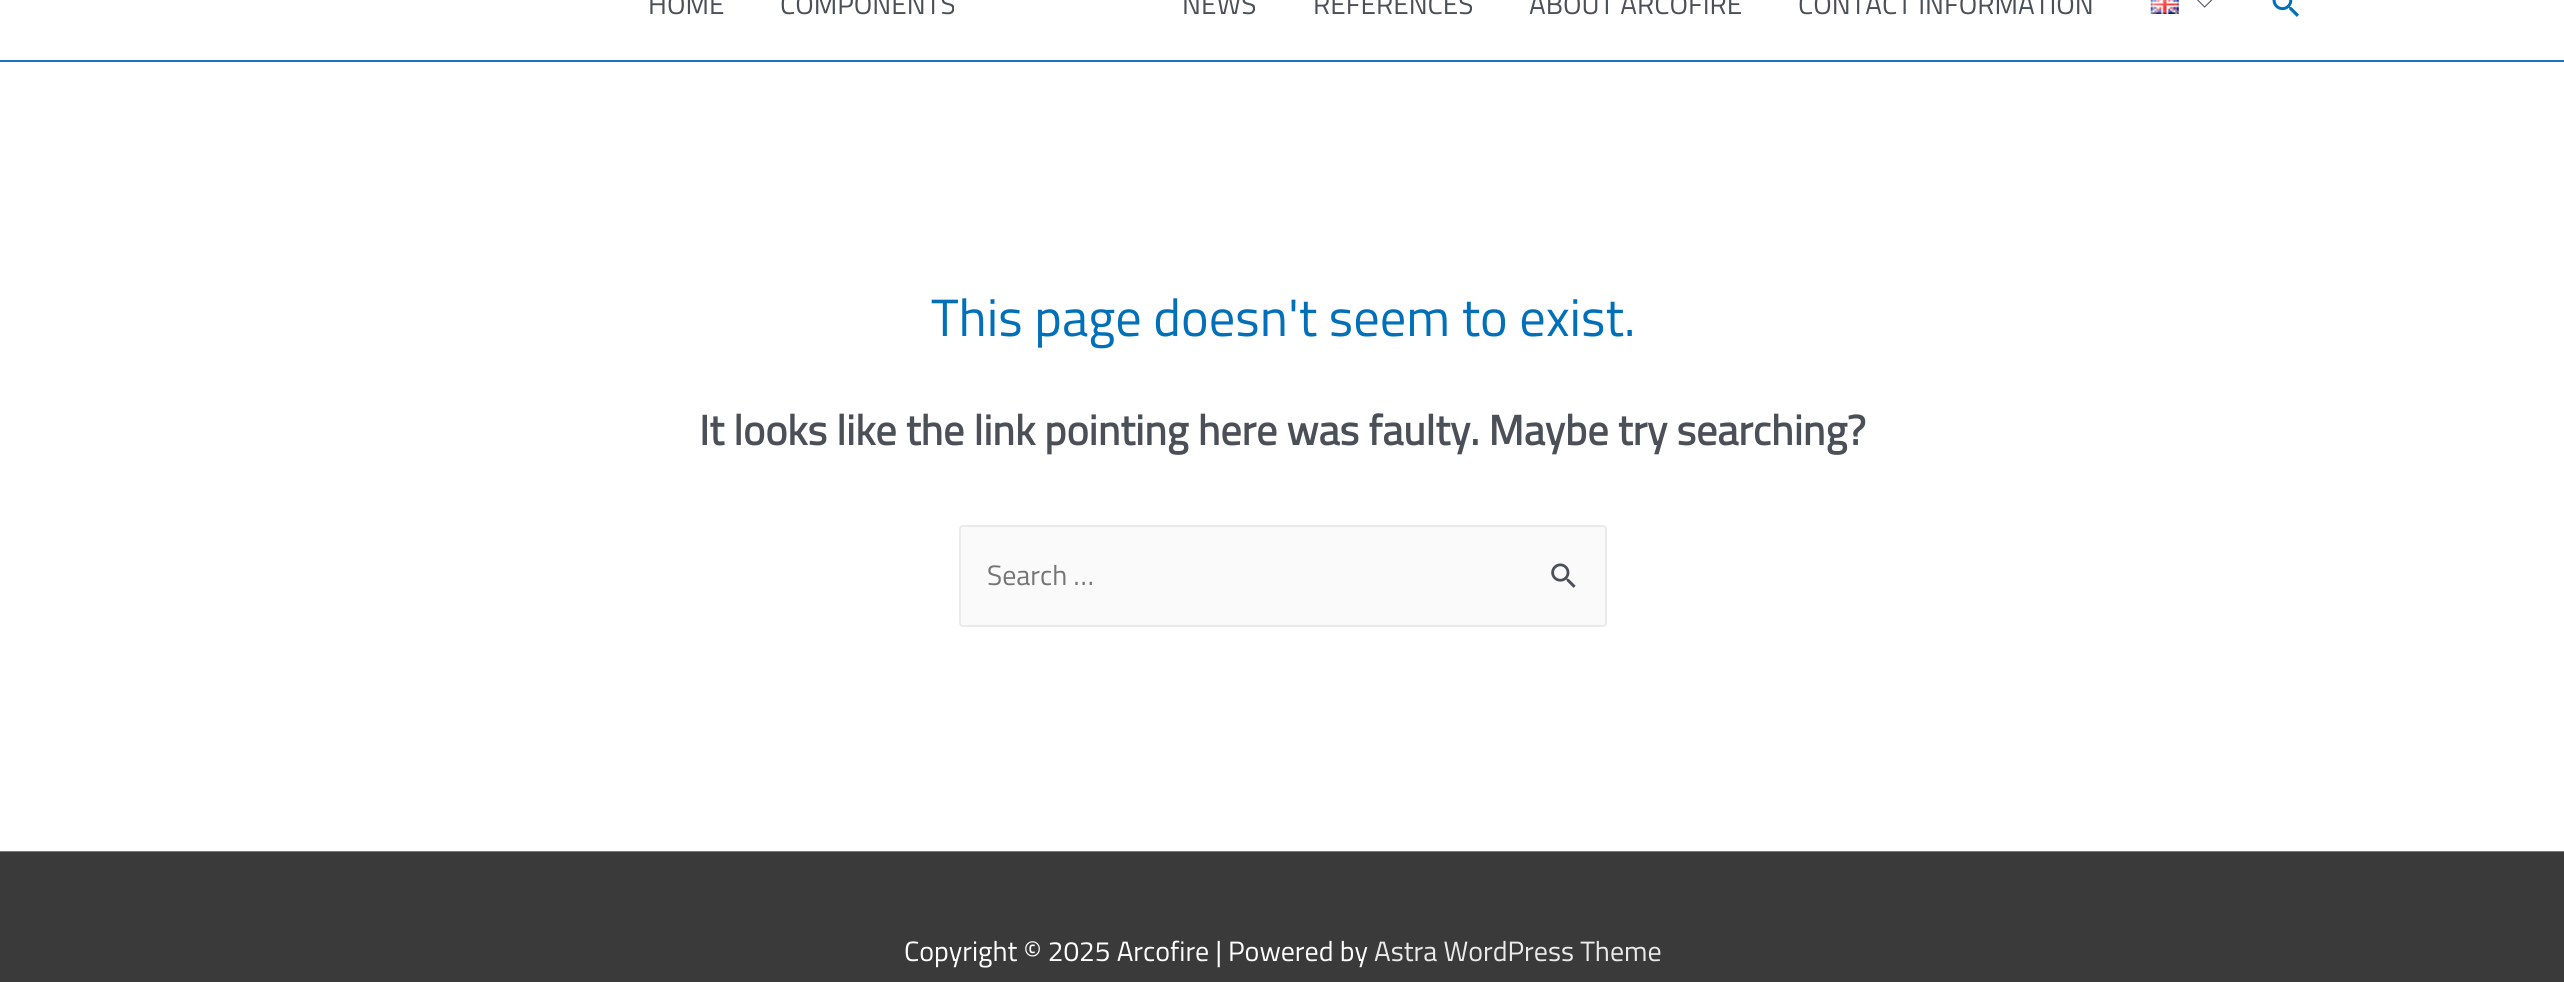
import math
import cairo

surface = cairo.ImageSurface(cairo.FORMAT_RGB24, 2564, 982)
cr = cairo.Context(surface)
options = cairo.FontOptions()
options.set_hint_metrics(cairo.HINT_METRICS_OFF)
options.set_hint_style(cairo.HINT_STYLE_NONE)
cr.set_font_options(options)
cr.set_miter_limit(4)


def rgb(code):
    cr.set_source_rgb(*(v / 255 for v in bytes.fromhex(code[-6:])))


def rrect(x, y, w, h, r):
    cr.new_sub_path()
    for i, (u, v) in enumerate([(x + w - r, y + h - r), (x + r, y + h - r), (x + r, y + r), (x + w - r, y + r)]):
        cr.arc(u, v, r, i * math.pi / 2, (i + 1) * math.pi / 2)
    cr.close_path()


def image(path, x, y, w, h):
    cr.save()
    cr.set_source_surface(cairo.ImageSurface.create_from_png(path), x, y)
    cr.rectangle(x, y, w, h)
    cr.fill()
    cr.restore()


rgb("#ffffff")
cr.paint()
rgb("#1e73be")
cr.rectangle(0, 60, 2564, 2)
cr.fill()
image("img/1.png", 2150, 0, 29, 14)
image("img/2.png", 2197, 0, 16, 8)
image("img/3.png", 2272, 0, 27, 17)
rgb("#fafafa")
rrect(960, 526, 646, 100, 3)
cr.fill_preserve()
rgb("#eaeaea")
cr.stroke()
image("img/4.png", 1551, 563, 25, 25)
rgb("#7a7a7a")
cr.rectangle(0, 851, 2564, 1)
cr.fill()
rgb("#3a3a3a")
cr.rectangle(0, 852, 2564, 130)
cr.fill()
cr.select_font_face("Titillium Web")
cr.set_font_size(28)
rgb("#4b4f58")
for x, y, s in [
    (648, 14, "HOME"),
    (780, 14, "COMPONENTS"),
    (1182, 14, "NEWS"),
    (1313, 14, "REFERENCES"),
    (1529, 14, "ABOUT ARCOFIRE"),
    (1798, 14, "CONTACT INFORMATION"),
]:
    cr.move_to(x, y)
    cr.show_text(s)
cr.set_font_size(52.5)
rgb("#0170b9")
cr.move_to(931, 336)
cr.show_text("This page doesn't seem to exist.")
cr.select_font_face("Titillium Web", cairo.FONT_SLANT_NORMAL, cairo.FONT_WEIGHT_BOLD)
cr.set_font_size(42)
rgb("#4b4f58")
cr.move_to(699, 445)
cr.show_text("It looks like the link pointing here was faulty. Maybe try searching?")
cr.select_font_face("Titillium Web")
cr.set_font_size(28)
rgb("#757575")
cr.move_to(987, 585)
cr.show_text("Search …")
rgb("#ffffff")
cr.move_to(904, 961)
cr.show_text("Copyright © 2025 Arcofire | Powered by")
rgb("#eaeaea")
cr.move_to(1374, 961)
cr.show_text("Astra WordPress Theme")
surface.write_to_png("page.png")
